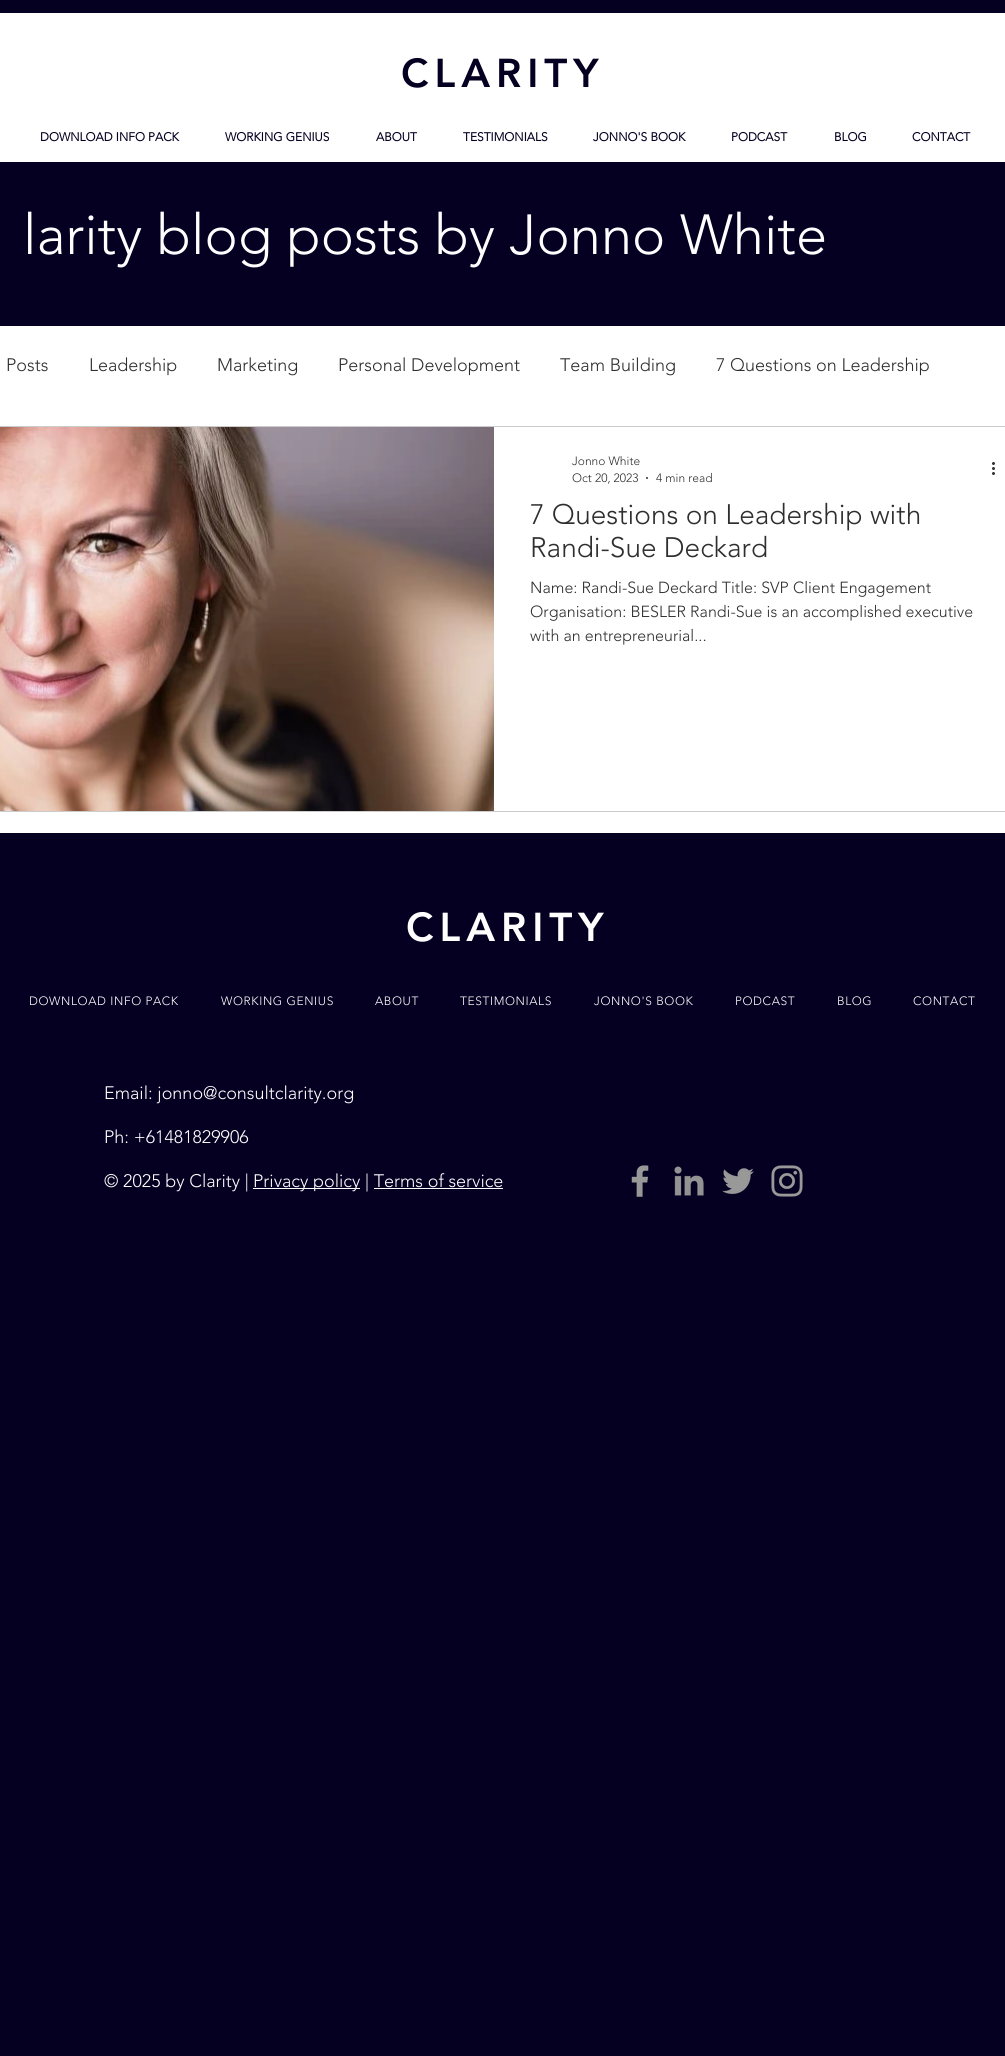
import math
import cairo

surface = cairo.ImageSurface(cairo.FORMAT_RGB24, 1005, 2056)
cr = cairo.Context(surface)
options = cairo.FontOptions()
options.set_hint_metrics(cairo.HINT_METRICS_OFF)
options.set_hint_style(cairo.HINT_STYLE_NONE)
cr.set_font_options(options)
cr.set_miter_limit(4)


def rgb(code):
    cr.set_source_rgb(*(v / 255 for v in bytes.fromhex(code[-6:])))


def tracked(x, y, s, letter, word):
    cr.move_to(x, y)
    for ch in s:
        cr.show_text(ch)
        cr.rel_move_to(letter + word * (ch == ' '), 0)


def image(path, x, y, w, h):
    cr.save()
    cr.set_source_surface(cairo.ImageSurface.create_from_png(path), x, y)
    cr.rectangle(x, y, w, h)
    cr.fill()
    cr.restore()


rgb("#050021")
cr.paint()
rgb("#ffffff")
cr.rectangle(0, 13, 1005, 149)
cr.fill()
cr.rectangle(0, 326, 1005, 507)
cr.fill()
cr.rectangle(-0.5, 426.5, 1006, 385)
rgb("#cccccc")
cr.set_line_width(1)
cr.stroke()
image("img/1.png", 0, 427, 494, 384)
rgb("#2f2e2e")
cr.arc(647, 478, 1, 0, 2 * math.pi)
cr.fill()
image("img/2.png", 992, 462, 3, 13)
rgb("#ffffff")
cr.rectangle(253, 1188, 107, 1)
cr.fill()
cr.rectangle(374, 1188, 129, 1)
cr.fill()
image("img/3.png", 631, 1165, 18, 32)
image("img/4.png", 674, 1166, 30, 30)
image("img/5.png", 722, 1168, 32, 27)
image("img/6.png", 771, 1165, 32, 32)
cr.select_font_face("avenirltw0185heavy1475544 Black")
cr.set_font_size(40)
rgb("#050021")
tracked(401, 87, "CLARITY", 6, 0)
cr.select_font_face("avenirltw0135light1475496", cairo.FONT_SLANT_NORMAL, cairo.FONT_WEIGHT_BOLD)
cr.set_font_size(12)
for x, y, s in [
    (40, 141, "DOWNLOAD INFO PACK"),
    (225, 141, "WORKING GENIUS"),
    (376, 141, "ABOUT"),
    (463, 141, "TESTIMONIALS"),
    (593, 141, "JONNO'S BOOK"),
    (731, 141, "PODCAST"),
    (834, 141, "BLOG"),
    (912, 141, "CONTACT"),
]:
    cr.move_to(x, y)
    cr.show_text(s)
cr.select_font_face("avenirltw0135light1475496 Light")
cr.set_font_size(56)
rgb("#ffffff")
cr.move_to(23, 254)
cr.show_text("larity blog posts by Jonno White")
cr.set_font_size(18)
rgb("#2f2e2e")
for x, y, s in [
    (6, 371, "Posts"),
    (89, 371, "Leadership"),
    (217, 371, "Marketing"),
    (338, 371, "Personal Development"),
    (560, 371, "Team Building"),
    (716, 371, "7 Questions on Leadership"),
]:
    cr.move_to(x, y)
    cr.show_text(s)
cr.set_font_size(12)
for x, y, s in [
    (572, 465, "Jonno White"),
    (572, 482, "Oct 20, 2023"),
    (656, 482, "4 min read"),
]:
    cr.move_to(x, y)
    cr.show_text(s)
cr.set_font_size(28)
cr.move_to(530, 524)
cr.show_text("7 Questions on Leadership with")
cr.move_to(530, 557)
cr.show_text("Randi-Sue Deckard")
cr.set_font_size(16)
for x, y, s in [
    (530, 593, "Name: Randi-Sue Deckard Title: SVP Client Engagement"),
    (530, 617, "Organisation: BESLER Randi-Sue is an accomplished executive"),
    (530, 641, "with an entrepreneurial..."),
]:
    cr.move_to(x, y)
    cr.show_text(s)
cr.select_font_face("avenirltw0185heavy1475544 Black")
cr.set_font_size(40)
rgb("#ffffff")
tracked(406, 941, "CLARITY", 6, 0)
cr.select_font_face("avenirltw0135light1475496 Light")
cr.set_font_size(12)
for x, y, s in [
    (29, 1005, "DOWNLOAD INFO PACK"),
    (221, 1005, "WORKING GENIUS"),
    (375, 1005, "ABOUT"),
    (460, 1005, "TESTIMONIALS"),
    (594, 1005, "JONNO'S BOOK"),
    (735, 1005, "PODCAST"),
    (837, 1005, "BLOG"),
    (913, 1005, "CONTACT"),
]:
    tracked(x, y, s, 0.6, 0)
cr.set_font_size(18)
for x, y, s in [
    (104, 1099, "Email: jonno@consultclarity.org"),
    (104, 1143, "Ph: +61481829906"),
    (104, 1187, "© 2025 by Clarity |"),
    (253, 1187, "Privacy policy | Terms of service"),
]:
    cr.move_to(x, y)
    cr.show_text(s)
surface.write_to_png("page.png")
